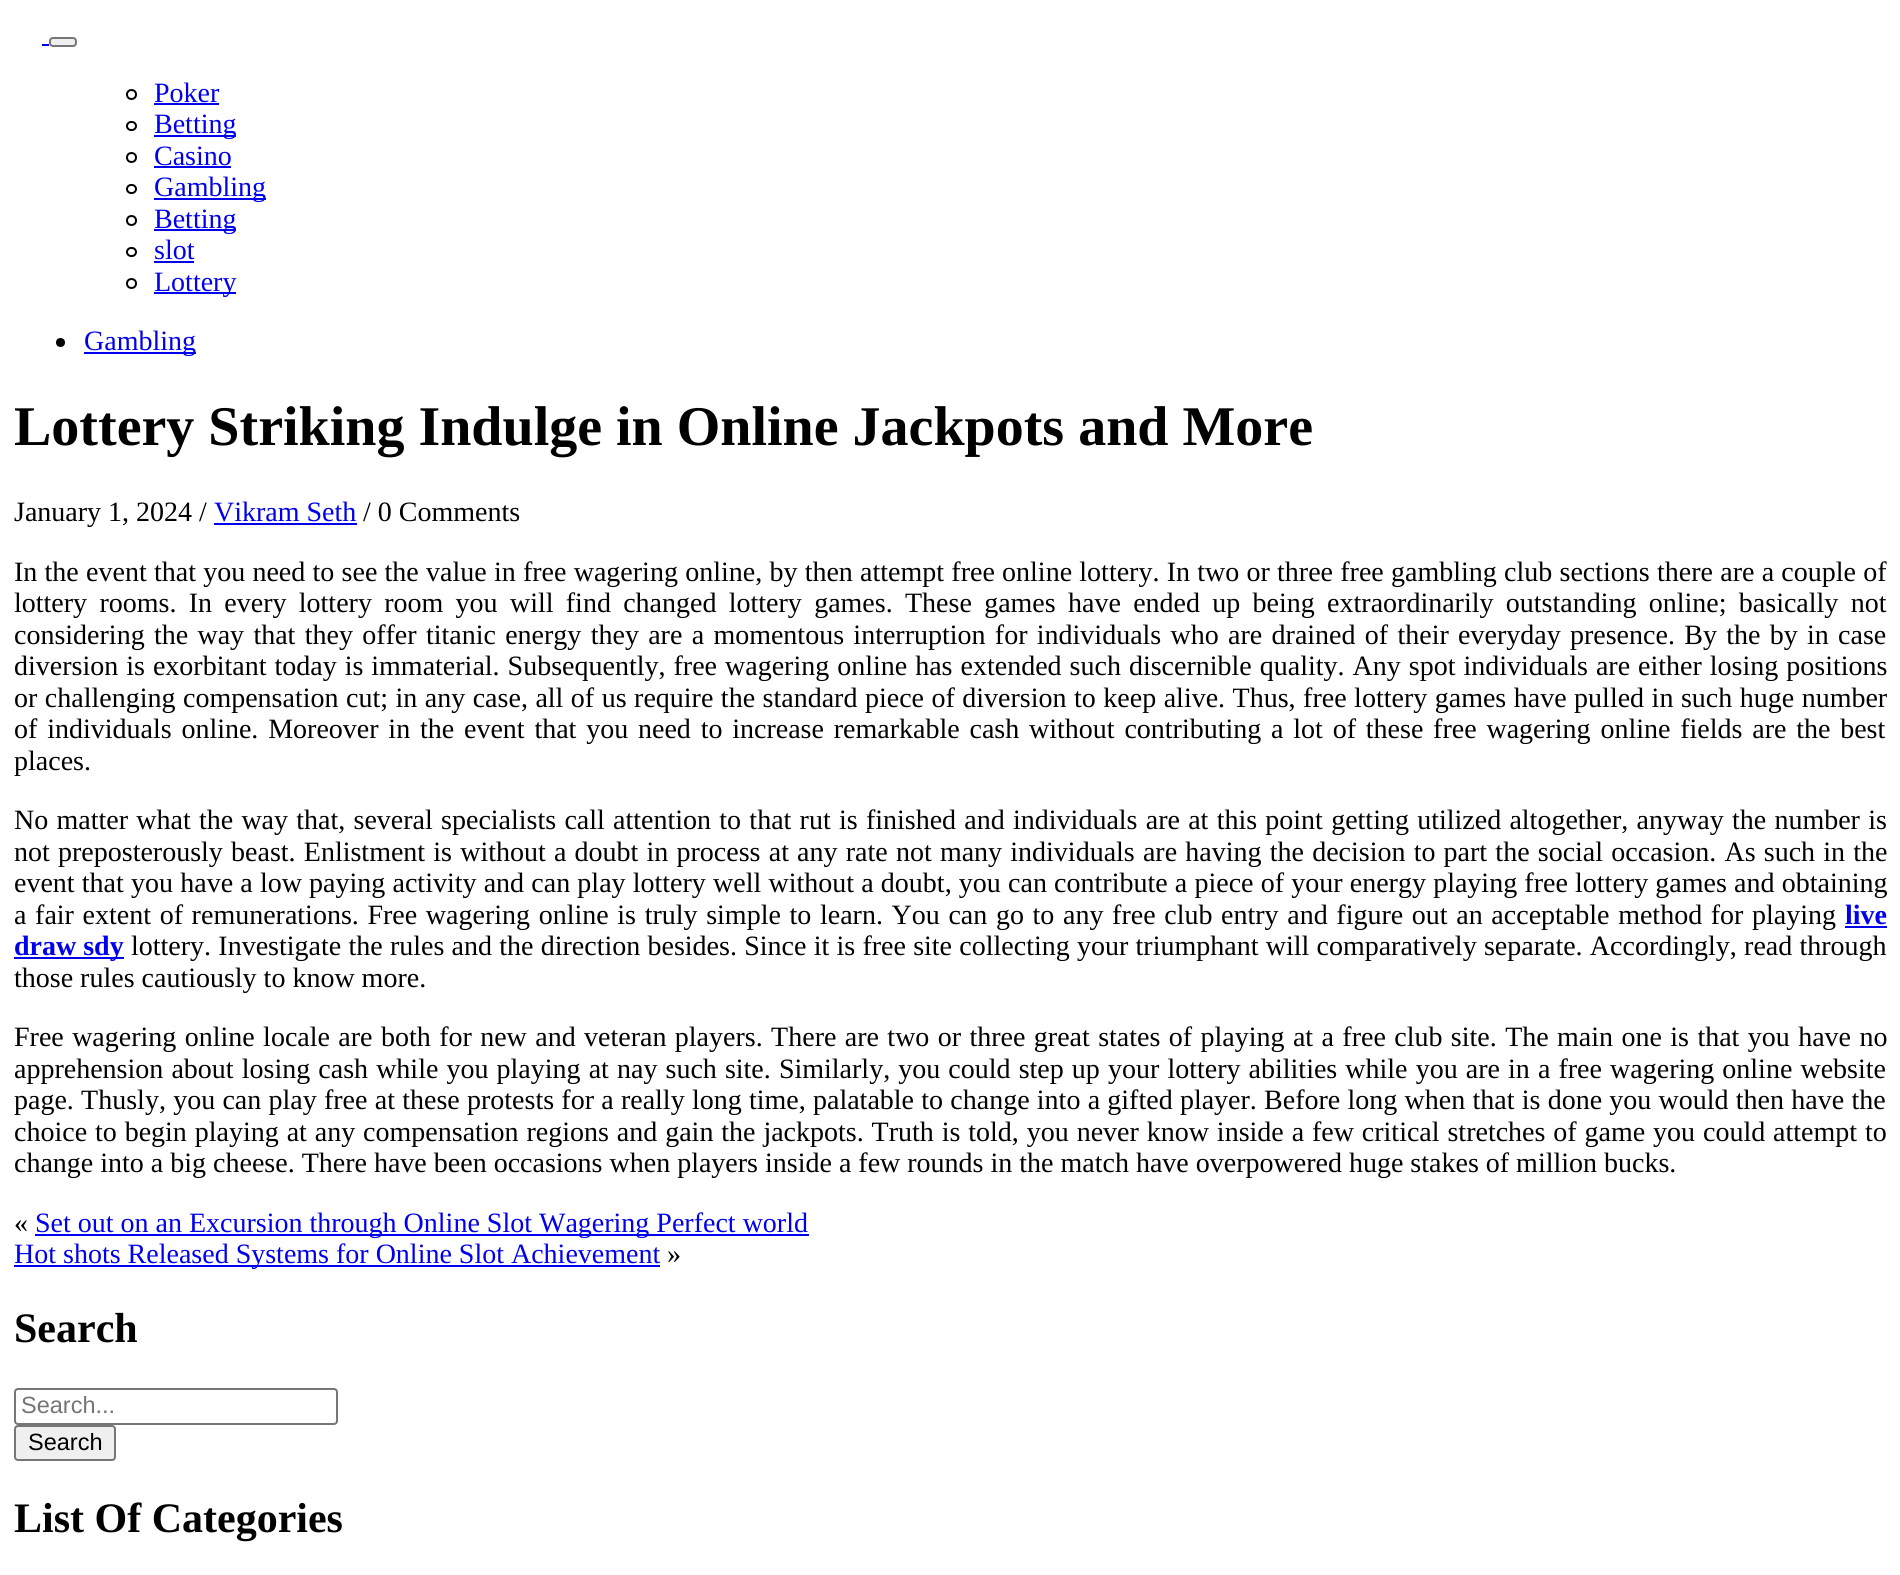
import math
import cairo

surface = cairo.ImageSurface(cairo.FORMAT_RGB24, 1900, 1575)
cr = cairo.Context(surface)
options = cairo.FontOptions()
options.set_hint_metrics(cairo.HINT_METRICS_OFF)
options.set_hint_style(cairo.HINT_STYLE_NONE)
cr.set_font_options(options)
cr.set_miter_limit(4)


def rgb(code):
    cr.set_source_rgb(*(v / 255 for v in bytes.fromhex(code[-6:])))


def tracked(x, y, s, letter, word):
    cr.move_to(x, y)
    for ch in s:
        cr.show_text(ch)
        cr.rel_move_to(letter + word * (ch == ' '), 0)


def rrect(x, y, w, h, r):
    cr.new_sub_path()
    for i, (u, v) in enumerate([(x + w - r, y + h - r), (x + r, y + h - r), (x + r, y + r), (x + w - r, y + r)]):
        cr.arc(u, v, r, i * math.pi / 2, (i + 1) * math.pi / 2)
    cr.close_path()


rgb("#ffffff")
cr.paint()
rgb("#0000ee")
cr.rectangle(42, 44, 7, 2)
cr.fill()
rgb("#efefef")
rrect(50, 38, 26, 8, 3)
cr.fill_preserve()
rgb("#767676")
cr.stroke()
cr.arc(131.5, 94.5, 4.5, 0, 2 * math.pi)
rgb("#000000")
cr.stroke()
rgb("#0000ee")
cr.rectangle(154, 103, 65, 2)
cr.fill()
rrect(127, 122, 9, 8, 4)
rgb("#000000")
cr.stroke()
rgb("#0000ee")
cr.rectangle(154, 135, 82, 2)
cr.fill()
cr.arc(131.5, 157.5, 4.5, 0, 2 * math.pi)
rgb("#000000")
cr.stroke()
rgb("#0000ee")
cr.rectangle(154, 166, 77, 2)
cr.fill()
rrect(127, 185, 9, 8, 4)
rgb("#000000")
cr.stroke()
rgb("#0000ee")
cr.rectangle(154, 198, 112, 2)
cr.fill()
cr.arc(131.5, 220.5, 4.5, 0, 2 * math.pi)
rgb("#000000")
cr.stroke()
rgb("#0000ee")
cr.rectangle(154, 229, 82, 2)
cr.fill()
rrect(127, 248, 9, 8, 4)
rgb("#000000")
cr.stroke()
rgb("#0000ee")
cr.rectangle(154, 261, 40, 2)
cr.fill()
cr.arc(131.5, 283.5, 4.5, 0, 2 * math.pi)
rgb("#000000")
cr.stroke()
rgb("#0000ee")
cr.rectangle(154, 292, 82, 2)
cr.fill()
rgb("#000000")
cr.arc(60.5, 342.5, 4.5, 0, 2 * math.pi)
cr.fill()
for x, y, w, h, color in [
    (84, 352, 112, 2, "#0000ee"),
    (214, 523, 143, 2, "#0000ee"),
    (1845, 926, 42, 2, "#0000ee"),
    (14, 957, 110, 2, "#0000ee"),
    (35, 1234, 774, 2, "#0000ee"),
    (14, 1265, 646, 2, "#0000ee"),
]:
    rgb(color)
    cr.rectangle(x, y, w, h)
    cr.fill()
rrect(15, 1389, 322, 35, 3)
rgb("#767676")
cr.stroke()
rgb("#efefef")
rrect(15, 1426, 100, 34, 3)
cr.fill_preserve()
rgb("#767676")
cr.stroke()
cr.select_font_face("Liberation Serif")
cr.set_font_size(28)
rgb("#0000ee")
for x, y, s in [
    (154, 102, "Poker"),
    (154, 133, "Betting"),
    (154, 165, "Casino"),
    (154, 196, "Gambling"),
    (154, 228, "Betting"),
    (154, 259, "slot"),
    (154, 291, "Lottery"),
    (84, 350, "Gambling"),
]:
    cr.move_to(x, y)
    cr.show_text(s)
cr.select_font_face("Liberation Serif", cairo.FONT_SLANT_NORMAL, cairo.FONT_WEIGHT_BOLD)
cr.set_font_size(56)
rgb("#000000")
cr.move_to(14, 445)
cr.show_text("Lottery Striking Indulge in Online Jackpots and More")
cr.select_font_face("Liberation Serif")
cr.set_font_size(28)
cr.move_to(14, 521)
cr.show_text("January 1, 2024 /")
rgb("#0000ee")
cr.move_to(214, 521)
cr.show_text("Vikram Seth")
rgb("#000000")
cr.move_to(363, 521)
cr.show_text("/ 0 Comments")
tracked(14, 581, "In the event that you need to see the value in free wagering online, by then attempt free online lottery. In two or three free gambling club sections there are a couple of", 0, 0.25)
tracked(14, 612, "lottery rooms. In every lottery room you will find changed lottery games. These games have ended up being extraordinarily outstanding online; basically not", 0, 5.3)
tracked(14, 644, "considering the way that they offer titanic energy they are a momentous interruption for individuals who are drained of their everyday presence. By the by in case", 0, 2.3)
tracked(14, 675, "diversion is exorbitant today is immaterial. Subsequently, free wagering online has extended such discernible quality. Any spot individuals are either losing positions", 0, 1)
tracked(14, 707, "or challenging compensation cut; in any case, all of us require the standard piece of diversion to keep alive. Thus, free lottery games have pulled in such huge number", 0, 0.5)
tracked(14, 738, "of individuals online. Moreover in the event that you need to increase remarkable cash without contributing a lot of these free wagering online fields are the best", 0, 2.8)
cr.move_to(14, 770)
cr.show_text("places.")
tracked(14, 829, "No matter what the way that, several specialists call attention to that rut is finished and individuals are at this point getting utilized altogether, anyway the number is", 0, 1.25)
tracked(14, 861, "not preposterously beast. Enlistment is without a doubt in process at any rate not many individuals are having the decision to part the social occasion. As such in the", 0, 1.2)
tracked(14, 892, "event that you have a low paying activity and can play lottery well without a doubt, you can contribute a piece of your energy playing free lottery games and obtaining", 0, 0.2)
tracked(14, 924, "a fair extent of remunerations. Free wagering online is truly simple to learn. You can go to any free club entry and figure out an acceptable method for playing", 0, 1.65)
cr.select_font_face("Liberation Serif", cairo.FONT_SLANT_NORMAL, cairo.FONT_WEIGHT_BOLD)
rgb("#0000ee")
cr.move_to(1845, 924)
cr.show_text("live")
cr.move_to(14, 955)
cr.show_text("draw sdy")
cr.select_font_face("Liberation Serif")
rgb("#000000")
tracked(131, 955, "lottery. Investigate the rules and the direction besides. Since it is free site collecting your triumphant will comparatively separate. Accordingly, read through", 0, 0.25)
cr.move_to(14, 987)
cr.show_text("those rules cautiously to know more.")
tracked(14, 1046, "Free wagering online locale are both for new and veteran players. There are two or three great states of playing at a free club site. The main one is that you have no", 0, 1.4)
tracked(14, 1078, "apprehension about losing cash while you playing at nay such site. Similarly, you could step up your lottery abilities while you are in a free wagering online website", 0, 1.1)
tracked(14, 1109, "page. Thusly, you can play free at these protests for a really long time, palatable to change into a gifted player. Before long when that is done you would then have the", 0, 0.25)
tracked(14, 1141, "choice to begin playing at any compensation regions and gain the jackpots. Truth is told, you never know inside a few critical stretches of game you could attempt to", 0, 0.9)
cr.move_to(14, 1172)
cr.show_text("change into a big cheese. There have been occasions when players inside a few rounds in the match have overpowered huge stakes of million bucks.")
cr.move_to(14, 1232)
cr.show_text("«")
rgb("#0000ee")
cr.move_to(35, 1232)
cr.show_text("Set out on an Excursion through Online Slot Wagering Perfect world")
cr.move_to(14, 1263)
cr.show_text("Hot shots Released Systems for Online Slot Achievement")
rgb("#000000")
cr.move_to(667, 1263)
cr.show_text("»")
cr.select_font_face("Liberation Serif", cairo.FONT_SLANT_NORMAL, cairo.FONT_WEIGHT_BOLD)
cr.set_font_size(42)
cr.move_to(14, 1342)
cr.show_text("Search")
cr.select_font_face("Liberation Sans")
cr.set_font_size(23.5)
rgb("#757575")
cr.move_to(21, 1413)
cr.show_text("Search...")
rgb("#000000")
cr.move_to(28, 1450)
cr.show_text("Search")
cr.select_font_face("Liberation Serif", cairo.FONT_SLANT_NORMAL, cairo.FONT_WEIGHT_BOLD)
cr.set_font_size(42)
cr.move_to(14, 1532)
cr.show_text("List Of Categories")
surface.write_to_png("page.png")
